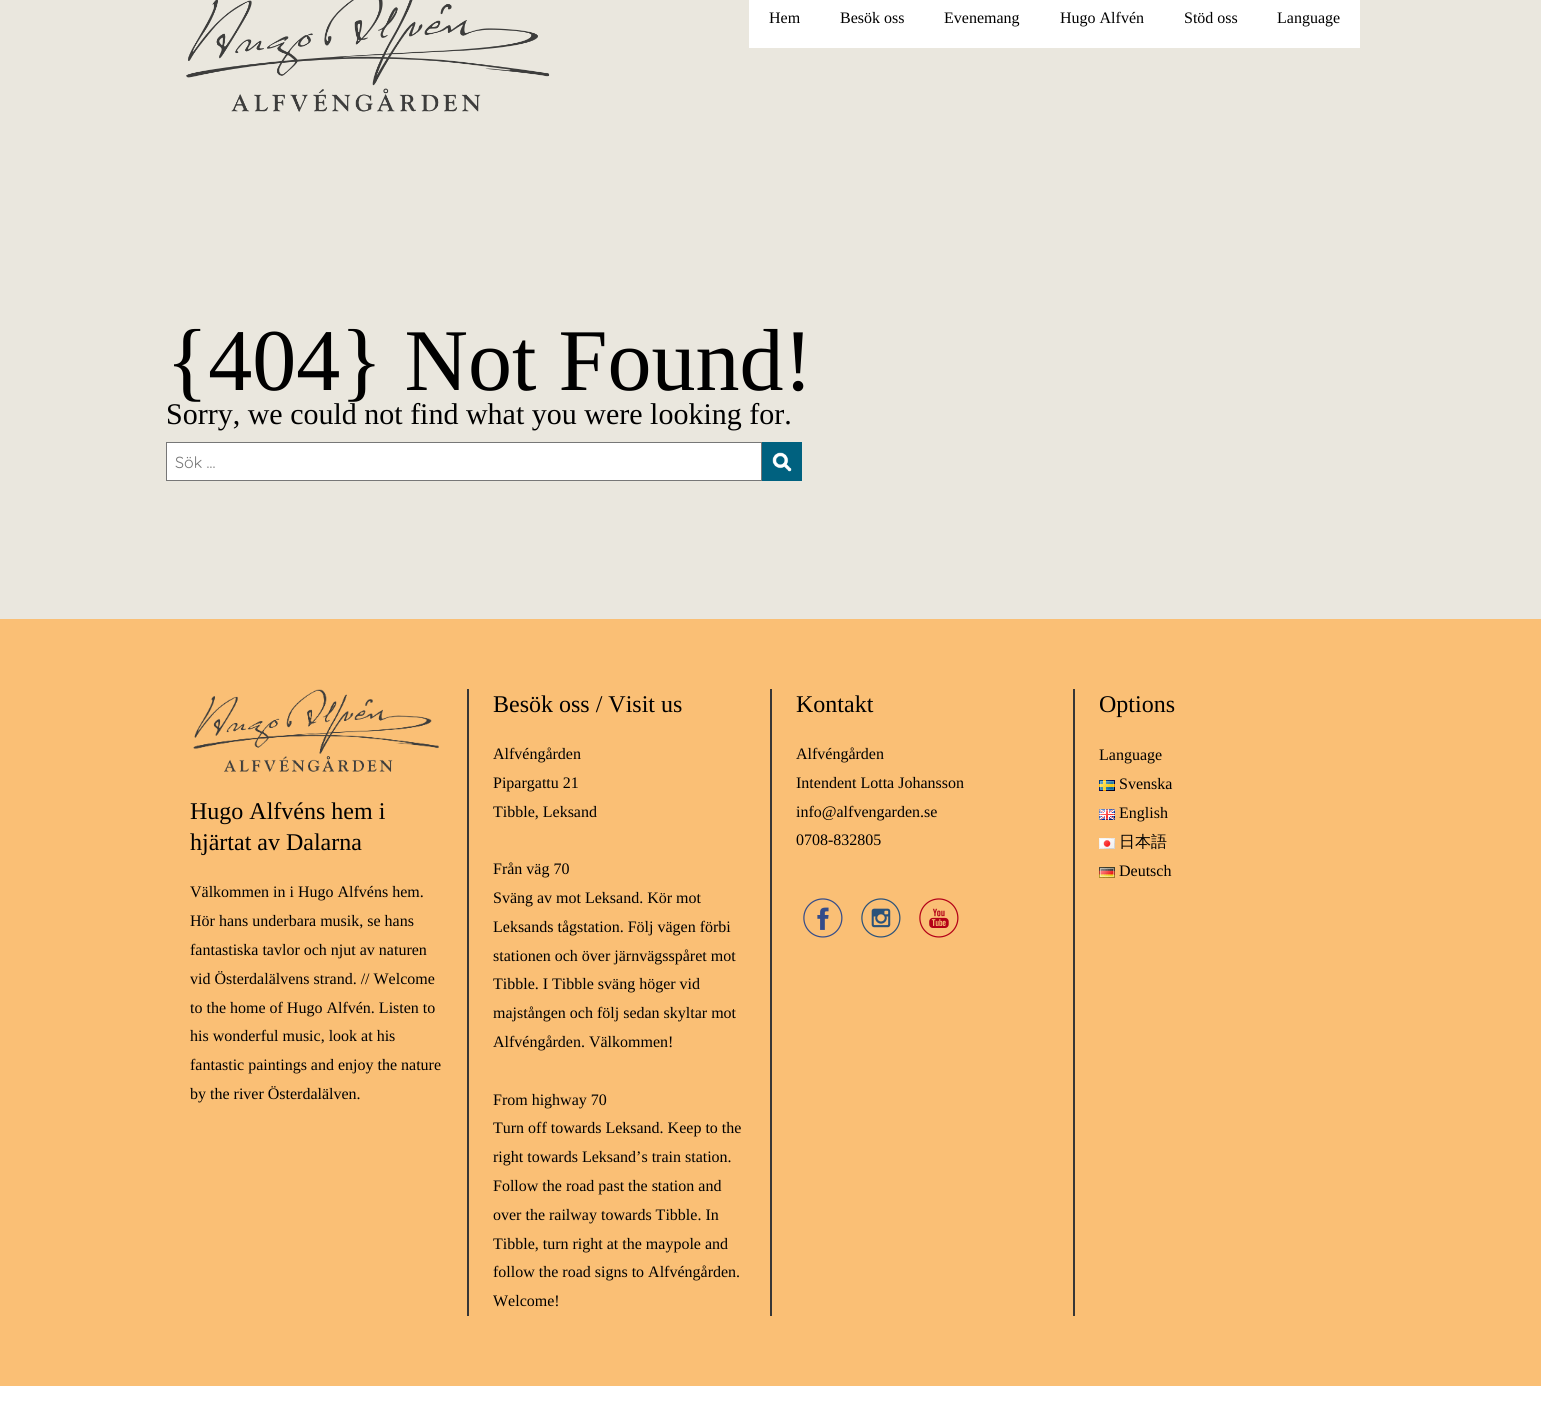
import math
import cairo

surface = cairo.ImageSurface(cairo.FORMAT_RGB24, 1541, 1428)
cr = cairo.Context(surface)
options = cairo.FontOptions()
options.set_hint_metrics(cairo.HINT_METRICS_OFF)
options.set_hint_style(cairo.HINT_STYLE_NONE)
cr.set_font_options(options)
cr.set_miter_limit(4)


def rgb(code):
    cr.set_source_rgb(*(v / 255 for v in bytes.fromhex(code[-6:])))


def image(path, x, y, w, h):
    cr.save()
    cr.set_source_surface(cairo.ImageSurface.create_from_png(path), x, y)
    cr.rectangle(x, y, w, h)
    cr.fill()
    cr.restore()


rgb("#eae7de")
cr.paint()
image("img/1.png", 186, 0, 364, 112)
rgb("#ffffff")
cr.rectangle(749, 0, 611, 48)
cr.fill()
cr.rectangle(166.5, 442.5, 595, 38)
cr.fill_preserve()
rgb("#777777")
cr.set_line_width(1)
cr.stroke()
rgb("#00617f")
cr.rectangle(762, 442, 40, 39)
cr.fill()
image("img/2.png", 772, 452, 20, 20)
rgb("#fabf75")
cr.rectangle(0, 619, 1541, 767)
cr.fill()
rgb("#363636")
cr.rectangle(467, 689, 2, 627)
cr.fill()
image("img/3.png", 193, 689, 246, 83)
cr.rectangle(770, 689, 2, 627)
cr.fill()
cr.rectangle(1073, 689, 2, 627)
cr.fill()
image("img/4.png", 803, 898, 40, 40)
image("img/5.png", 861, 898, 40, 40)
image("img/6.png", 919, 898, 40, 40)
image("img/7.png", 1099, 780, 16, 11)
image("img/8.png", 1099, 809, 16, 11)
image("img/9.png", 1099, 838, 16, 11)
image("img/10.png", 1099, 867, 16, 11)
rgb("#ffffff")
cr.rectangle(0, 1386, 1541, 42)
cr.fill()
cr.select_font_face("Tinos")
cr.set_font_size(16)
rgb("#000000")
for x, y, s in [
    (769, 23, "Hem"),
    (840, 23, "Besök oss"),
    (944, 23, "Evenemang"),
    (1060, 23, "Hugo Alfvén"),
    (1184, 23, "Stöd oss"),
    (1277, 23, "Language"),
]:
    cr.move_to(x, y)
    cr.show_text(s)
cr.set_font_size(88)
cr.move_to(166, 390)
cr.show_text("{404} Not Found!")
cr.set_font_size(30)
cr.move_to(166, 424)
cr.show_text("Sorry, we could not find what you were looking for.")
cr.select_font_face("Quicksand")
cr.set_font_size(16)
rgb("#757575")
cr.move_to(175, 468)
cr.show_text("Sök …")
cr.select_font_face("Tinos")
cr.set_font_size(24)
rgb("#000000")
cr.move_to(190, 819)
cr.show_text("Hugo Alfvéns hem i")
cr.move_to(190, 850)
cr.show_text("hjärtat av Dalarna")
cr.set_font_size(16)
for x, y, s in [
    (190, 897, "Välkommen in i Hugo Alfvéns hem."),
    (190, 926, "Hör hans underbara musik, se hans"),
    (190, 955, "fantastiska tavlor och njut av naturen"),
    (190, 984, "vid Österdalälvens strand. // Welcome"),
    (190, 1013, "to the home of Hugo Alfvén. Listen to"),
    (190, 1041, "his wonderful music, look at his"),
    (190, 1070, "fantastic paintings and enjoy the nature"),
    (190, 1099, "by the river Österdalälven."),
]:
    cr.move_to(x, y)
    cr.show_text(s)
cr.set_font_size(24)
cr.move_to(493, 712)
cr.show_text("Besök oss / Visit us")
cr.set_font_size(16)
for x, y, s in [
    (493, 759, "Alfvéngården"),
    (493, 788, "Pipargattu 21"),
    (493, 817, "Tibble, Leksand"),
    (493, 874, "Från väg 70"),
    (493, 903, "Sväng av mot Leksand. Kör mot"),
    (493, 932, "Leksands tågstation. Följ vägen förbi"),
    (493, 961, "stationen och över järnvägsspåret mot"),
    (493, 989, "Tibble. I Tibble sväng höger vid"),
    (493, 1018, "majstången och följ sedan skyltar mot"),
    (493, 1047, "Alfvéngården. Välkommen!"),
    (493, 1105, "From highway 70"),
    (493, 1133, "Turn off towards Leksand. Keep to the"),
    (493, 1162, "right towards Leksand’s train station."),
    (493, 1191, "Follow the road past the station and"),
    (493, 1220, "over the railway towards Tibble. In"),
    (493, 1249, "Tibble, turn right at the maypole and"),
    (493, 1277, "follow the road signs to Alfvéngården."),
    (493, 1306, "Welcome!"),
]:
    cr.move_to(x, y)
    cr.show_text(s)
cr.set_font_size(24)
cr.move_to(796, 712)
cr.show_text("Kontakt")
cr.set_font_size(16)
for x, y, s in [
    (796, 759, "Alfvéngården"),
    (796, 788, "Intendent Lotta Johansson"),
    (796, 817, "info@alfvengarden.se"),
    (796, 845, "0708-832805"),
]:
    cr.move_to(x, y)
    cr.show_text(s)
cr.set_font_size(24)
cr.move_to(1099, 712)
cr.show_text("Options")
cr.set_font_size(16)
for x, y, s in [
    (1099, 760, "Language"),
    (1119, 789, "Svenska"),
    (1119, 818, "English"),
]:
    cr.move_to(x, y)
    cr.show_text(s)
cr.select_font_face("WenQuanYi Zen Hei Medium")
cr.move_to(1119, 847)
cr.show_text("日本語")
cr.select_font_face("Tinos")
cr.move_to(1119, 876)
cr.show_text("Deutsch")
surface.write_to_png("page.png")
